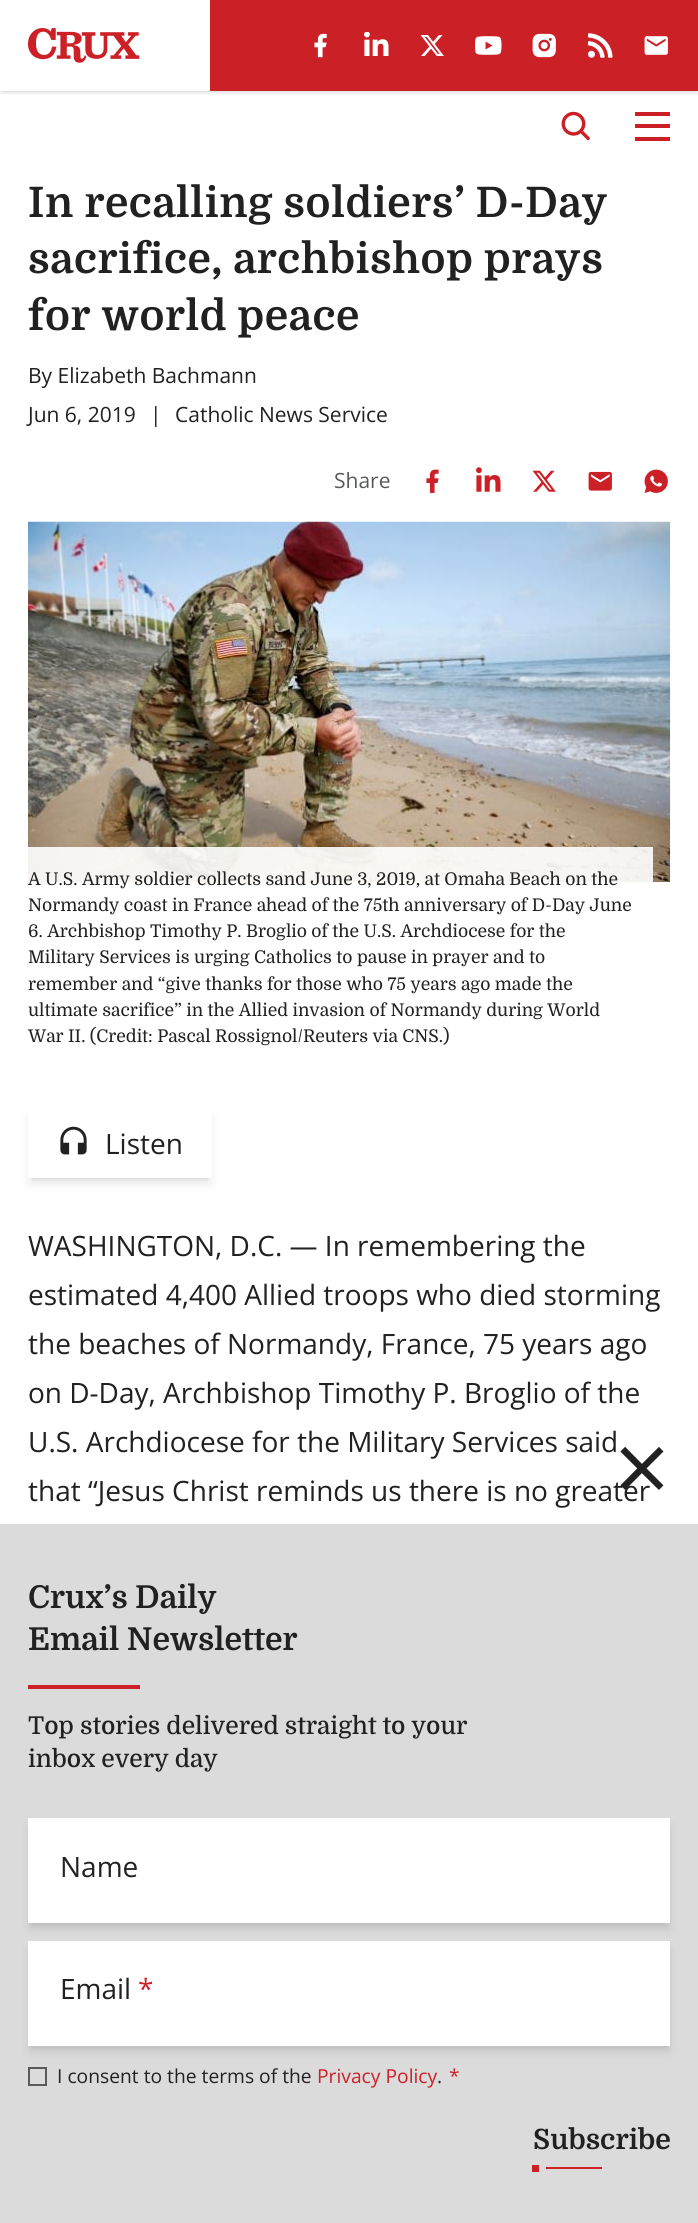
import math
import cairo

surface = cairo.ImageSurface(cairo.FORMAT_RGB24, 698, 2223)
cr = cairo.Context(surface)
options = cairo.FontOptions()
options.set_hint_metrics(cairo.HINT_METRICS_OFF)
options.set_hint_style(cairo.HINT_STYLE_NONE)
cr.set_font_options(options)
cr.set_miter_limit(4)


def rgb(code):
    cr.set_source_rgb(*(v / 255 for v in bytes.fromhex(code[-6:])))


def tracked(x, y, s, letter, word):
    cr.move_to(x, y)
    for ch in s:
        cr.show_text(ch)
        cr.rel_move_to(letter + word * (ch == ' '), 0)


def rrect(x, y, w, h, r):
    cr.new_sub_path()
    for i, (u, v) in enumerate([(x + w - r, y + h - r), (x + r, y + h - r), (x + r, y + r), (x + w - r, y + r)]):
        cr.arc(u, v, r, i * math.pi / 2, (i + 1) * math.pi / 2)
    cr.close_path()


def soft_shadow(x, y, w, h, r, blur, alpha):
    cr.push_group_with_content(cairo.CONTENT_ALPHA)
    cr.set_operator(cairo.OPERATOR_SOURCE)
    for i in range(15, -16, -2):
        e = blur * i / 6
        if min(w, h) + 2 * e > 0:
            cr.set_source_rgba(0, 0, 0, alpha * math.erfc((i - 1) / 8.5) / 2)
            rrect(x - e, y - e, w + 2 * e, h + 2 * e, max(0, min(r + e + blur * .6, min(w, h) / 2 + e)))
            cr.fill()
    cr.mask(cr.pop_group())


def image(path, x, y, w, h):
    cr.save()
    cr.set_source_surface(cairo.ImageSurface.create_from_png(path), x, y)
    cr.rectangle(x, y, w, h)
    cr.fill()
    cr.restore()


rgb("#ffffff")
cr.paint()
rgb("#dbdbdb")
cr.rectangle(0, 1524, 698, 699)
cr.fill()
cr.save()
cr.rectangle(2, 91, 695, 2)
cr.clip()
rgb("#000000")
soft_shadow(2, 4, 695, 87, 0, 2, 0.1)
cr.restore()
cr.save()
cr.rectangle(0, 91, 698, 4)
cr.clip()
rgb("#000000")
soft_shadow(0, 2, 698, 91, 0, 2.5, 0.1)
cr.restore()
image("img/1.png", 28, 28, 112, 35)
rgb("#cc2027")
cr.rectangle(210, 0, 488, 91)
cr.fill()
image("img/2.png", 314, 33, 13, 25)
image("img/3.png", 364, 32, 25, 24)
image("img/4.png", 420, 35, 24, 21)
image("img/5.png", 475, 36, 27, 19)
image("img/6.png", 532, 33, 24, 25)
image("img/7.png", 588, 33, 25, 25)
image("img/8.png", 644, 36, 24, 19)
image("img/9.png", 561, 111, 29, 30)
for x, y, w, h, color in [
    (635, 112, 35, 4, "#cc2027"),
    (635, 124, 35, 4, "#cc2027"),
    (635, 137, 35, 4, "#cc2027"),
]:
    rgb(color)
    cr.rectangle(x, y, w, h)
    cr.fill()
image("img/10.png", 426, 469, 13, 24)
image("img/11.png", 476, 467, 25, 25)
image("img/12.png", 532, 470, 24, 22)
image("img/13.png", 588, 471, 24, 20)
image("img/14.png", 644, 469, 24, 24)
image("img/15.png", 28, 521, 643, 361)
cr.set_source_rgba(1, 1, 1, 0.9)
cr.rectangle(28, 847, 625, 35)
cr.fill()
cr.save()
cr.rectangle(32, 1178, 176, 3)
cr.clip()
rgb("#000000")
soft_shadow(32, 1115, 176, 63, 0, 3.5, 0.1)
cr.restore()
cr.save()
cr.set_fill_rule(cairo.FILL_RULE_EVEN_ODD)
cr.new_path()
cr.move_to(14, 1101)
cr.line_to(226, 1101)
cr.line_to(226, 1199)
cr.line_to(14, 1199)
cr.close_path()
cr.move_to(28, 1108)
cr.line_to(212, 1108)
cr.line_to(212, 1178)
cr.line_to(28, 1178)
cr.close_path()
cr.clip()
rgb("#000000")
soft_shadow(30, 1117, 180, 66, 0, 5, 0.1)
cr.restore()
image("img/16.png", 60, 1126, 27, 29)
rgb("#cc2027")
cr.rectangle(28, 1685, 112, 4)
cr.fill()
rgb("#000000")
soft_shadow(32, 1825, 635, 98, 0, 3.5, 0.1)
soft_shadow(30, 1827, 639, 102, 0, 5, 0.1)
rgb("#ffffff")
cr.rectangle(28, 1818, 642, 105)
cr.fill()
rgb("#000000")
soft_shadow(32, 1948, 635, 98, 0, 3.5, 0.1)
soft_shadow(30, 1950, 639, 101, 0, 5, 0.1)
rgb("#ffffff")
cr.rectangle(28, 1941, 642, 105)
cr.fill()
cr.rectangle(29, 2068, 17, 17)
rgb("#57595b")
cr.stroke()
rgb("#cc2027")
cr.rectangle(532, 2165, 7, 7)
cr.fill()
cr.rectangle(546, 2167, 56, 2)
cr.fill()
cr.select_font_face("Domine", cairo.FONT_SLANT_NORMAL, cairo.FONT_WEIGHT_BOLD)
cr.set_font_size(42)
rgb("#212121")
for x, y, s in [
    (28, 217, "In recalling soldiers’ D-Day"),
    (28, 273, "sacrifice, archbishop prays"),
    (28, 330, "for world peace"),
]:
    tracked(x, y, s, 0.6, 0)
cr.select_font_face("Open Sans")
cr.set_font_size(21)
for x, y, s in [
    (28, 383, "By Elizabeth Bachmann"),
    (28, 422, "Jun 6, 2019"),
    (150, 422, "|"),
    (175, 422, "Catholic News Service"),
]:
    cr.move_to(x, y)
    cr.show_text(s)
rgb("#57595b")
cr.move_to(334, 488)
cr.show_text("Share")
cr.select_font_face("Domine")
cr.set_font_size(17.5)
rgb("#212121")
for x, y, s in [
    (28, 885, "A U.S. Army soldier collects sand June 3, 2019, at Omaha Beach on the"),
    (28, 911, "Normandy coast in France ahead of the 75th anniversary of D-Day June"),
    (28, 937, "6. Archbishop Timothy P. Broglio of the U.S. Archdiocese for the"),
    (28, 963, "Military Services is urging Catholics to pause in prayer and to"),
    (28, 990, "remember and “give thanks for those who 75 years ago made the"),
    (28, 1016, "ultimate sacrifice” in the Allied invasion of Normandy during World"),
    (28, 1042, "War II. (Credit: Pascal Rossignol/Reuters via CNS.)"),
]:
    cr.move_to(x, y)
    cr.show_text(s)
cr.select_font_face("Open Sans")
cr.set_font_size(28)
for x, y, s in [
    (105, 1154, "Listen"),
    (28, 1256, "WASHINGTON, D.C. — In remembering the"),
    (28, 1305, "estimated 4,400 Allied troops who died storming"),
    (28, 1354, "the beaches of Normandy, France, 75 years ago"),
    (28, 1403, "on D-Day, Archbishop Timothy P. Broglio of the"),
    (28, 1452, "U.S. Archdiocese for the Military Services said"),
    (28, 1501, "that “Jesus Christ reminds us there is no greater"),
]:
    cr.move_to(x, y)
    cr.show_text(s)
cr.set_font_size(98)
cr.move_to(614, 1503)
cr.show_text("×")
cr.select_font_face("Domine", cairo.FONT_SLANT_NORMAL, cairo.FONT_WEIGHT_BOLD)
cr.set_font_size(31.5)
cr.move_to(28, 1608)
cr.show_text("Crux’s Daily")
cr.move_to(28, 1650)
cr.show_text("Email Newsletter")
cr.select_font_face("Domine Medium")
cr.set_font_size(24.5)
cr.move_to(28, 1734)
cr.show_text("Top stories delivered straight to your")
cr.move_to(28, 1767)
cr.show_text("inbox every day")
cr.select_font_face("Open Sans")
cr.set_font_size(28)
cr.move_to(60, 1877)
cr.show_text("Name")
cr.move_to(60, 1999)
cr.show_text("Email")
rgb("#cc2027")
cr.move_to(138, 1999)
cr.show_text("*")
cr.set_font_size(19.25)
rgb("#212121")
cr.move_to(57, 2083)
cr.show_text("I consent to the terms of the")
rgb("#cc2027")
cr.move_to(317, 2083)
cr.show_text("Privacy Policy")
cr.move_to(449, 2083)
cr.show_text("*")
rgb("#212121")
cr.move_to(437, 2083)
cr.show_text(".")
cr.select_font_face("Domine", cairo.FONT_SLANT_NORMAL, cairo.FONT_WEIGHT_BOLD)
cr.set_font_size(28)
cr.move_to(533, 2149)
cr.show_text("Subscribe")
surface.write_to_png("page.png")
